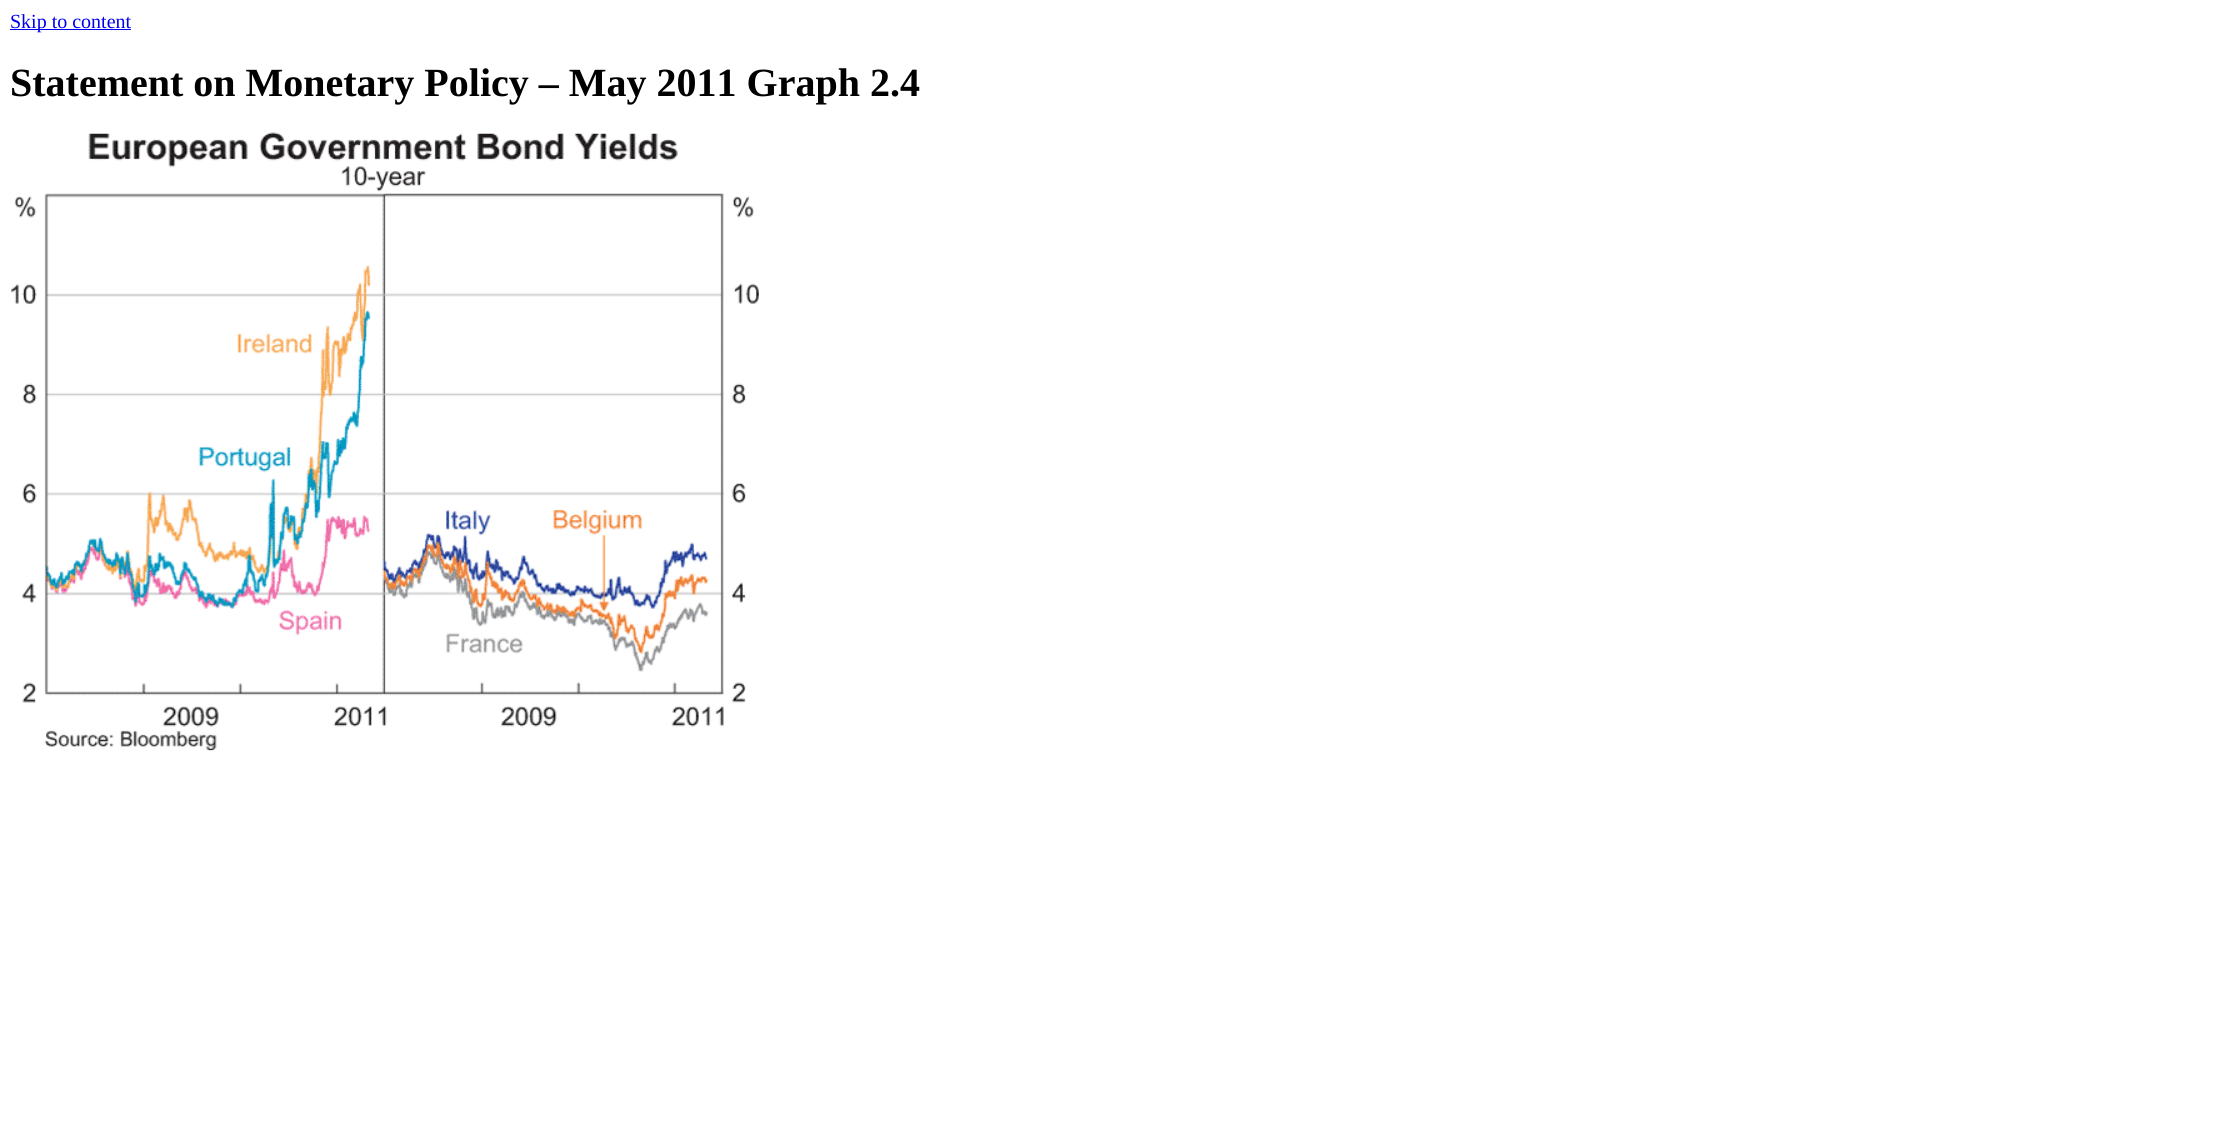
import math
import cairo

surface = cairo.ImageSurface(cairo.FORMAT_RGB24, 2221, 1141)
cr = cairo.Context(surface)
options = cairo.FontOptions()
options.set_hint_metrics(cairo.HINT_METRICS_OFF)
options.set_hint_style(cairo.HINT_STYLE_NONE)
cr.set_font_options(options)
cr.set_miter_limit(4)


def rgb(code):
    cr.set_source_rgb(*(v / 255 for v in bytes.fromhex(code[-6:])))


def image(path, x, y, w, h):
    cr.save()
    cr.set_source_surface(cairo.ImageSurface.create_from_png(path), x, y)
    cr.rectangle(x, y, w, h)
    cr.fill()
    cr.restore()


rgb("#ffffff")
cr.paint()
rgb("#0000ee")
cr.rectangle(10, 29, 121, 1)
cr.fill()
image("img/1.png", 11, 132, 748, 619)
cr.select_font_face("Liberation Serif")
cr.set_font_size(20)
cr.move_to(10, 28)
cr.show_text("Skip to content")
cr.select_font_face("Liberation Serif", cairo.FONT_SLANT_NORMAL, cairo.FONT_WEIGHT_BOLD)
cr.set_font_size(40)
rgb("#000000")
cr.move_to(10, 96)
cr.show_text("Statement on Monetary Policy – May 2011 Graph 2.4")
surface.write_to_png("page.png")
